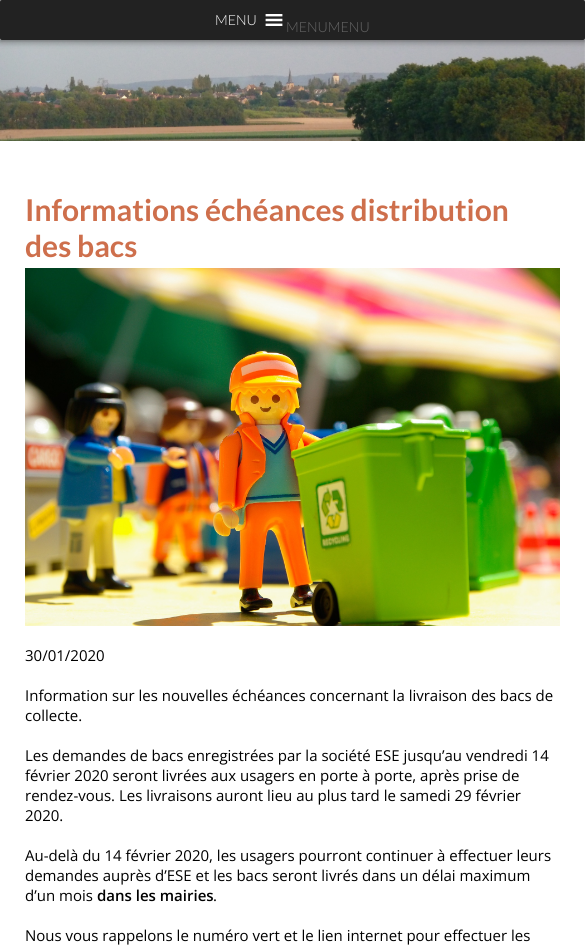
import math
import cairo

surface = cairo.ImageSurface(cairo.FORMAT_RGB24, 585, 952)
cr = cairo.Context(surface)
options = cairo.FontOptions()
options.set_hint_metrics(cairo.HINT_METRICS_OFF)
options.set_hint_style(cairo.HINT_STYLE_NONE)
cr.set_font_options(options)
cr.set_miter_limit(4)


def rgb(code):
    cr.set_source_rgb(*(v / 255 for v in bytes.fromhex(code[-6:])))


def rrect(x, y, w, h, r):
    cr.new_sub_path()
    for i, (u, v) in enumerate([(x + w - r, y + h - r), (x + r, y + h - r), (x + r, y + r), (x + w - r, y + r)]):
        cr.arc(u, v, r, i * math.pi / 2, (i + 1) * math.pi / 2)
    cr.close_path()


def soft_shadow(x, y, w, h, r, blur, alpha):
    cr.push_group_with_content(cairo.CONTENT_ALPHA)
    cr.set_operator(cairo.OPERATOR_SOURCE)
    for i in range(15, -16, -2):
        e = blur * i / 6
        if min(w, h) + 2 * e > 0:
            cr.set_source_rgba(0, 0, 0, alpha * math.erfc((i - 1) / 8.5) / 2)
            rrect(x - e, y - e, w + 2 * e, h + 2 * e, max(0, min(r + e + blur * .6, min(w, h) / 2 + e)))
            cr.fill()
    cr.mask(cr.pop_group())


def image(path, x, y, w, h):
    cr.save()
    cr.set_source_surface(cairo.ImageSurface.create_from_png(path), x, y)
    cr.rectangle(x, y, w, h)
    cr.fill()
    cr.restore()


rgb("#ffffff")
cr.paint()
image("img/2.png", 0, 40, 585, 101)
rgb("#444444")
soft_shadow(0, 0, 585, 40, 0, 4, 1)
rgb("#222222")
rrect(0, 0, 585, 40, 2)
cr.fill()
image("img/1.png", 265, 14, 18, 12)
image("img/3.png", 25, 268, 535, 358)
cr.select_font_face("Lato Light")
cr.set_font_size(14)
rgb("#ffffff")
cr.move_to(215, 25)
cr.show_text("MENU")
rgb("#666666")
cr.move_to(286, 32)
cr.show_text("MENUMENU")
cr.select_font_face("Lato", cairo.FONT_SLANT_NORMAL, cairo.FONT_WEIGHT_BOLD)
cr.set_font_size(30)
rgb("#ce6f4c")
cr.move_to(25, 221)
cr.show_text("Informations échéances distribution")
cr.move_to(25, 257)
cr.show_text("des bacs")
cr.select_font_face("Open Sans")
cr.set_font_size(15)
rgb("#000000")
for x, y, s in [
    (25, 661, "30/01/2020"),
    (25, 701, "Information sur les nouvelles échéances concernant la livraison des bacs de"),
    (25, 721, "collecte."),
    (25, 761, "Les demandes de bacs enregistrées par la société ESE jusqu’au vendredi 14"),
    (25, 781, "février 2020 seront livrées aux usagers en porte à porte, après prise de"),
    (25, 801, "rendez-vous. Les livraisons auront lieu au plus tard le samedi 29 février"),
    (25, 821, "2020."),
    (25, 861, "Au-delà du 14 février 2020, les usagers pourront continuer à effectuer leurs"),
    (25, 881, "demandes auprès d’ESE et les bacs seront livrés dans un délai maximum"),
    (25, 901, "d’un mois"),
]:
    cr.move_to(x, y)
    cr.show_text(s)
cr.select_font_face("Open Sans SemiBold")
cr.move_to(97, 901)
cr.show_text("dans les mairies")
cr.select_font_face("Open Sans")
cr.move_to(213, 901)
cr.show_text(".")
cr.move_to(25, 941)
cr.show_text("Nous vous rappelons le numéro vert et le lien internet pour effectuer les")
surface.write_to_png("page.png")
